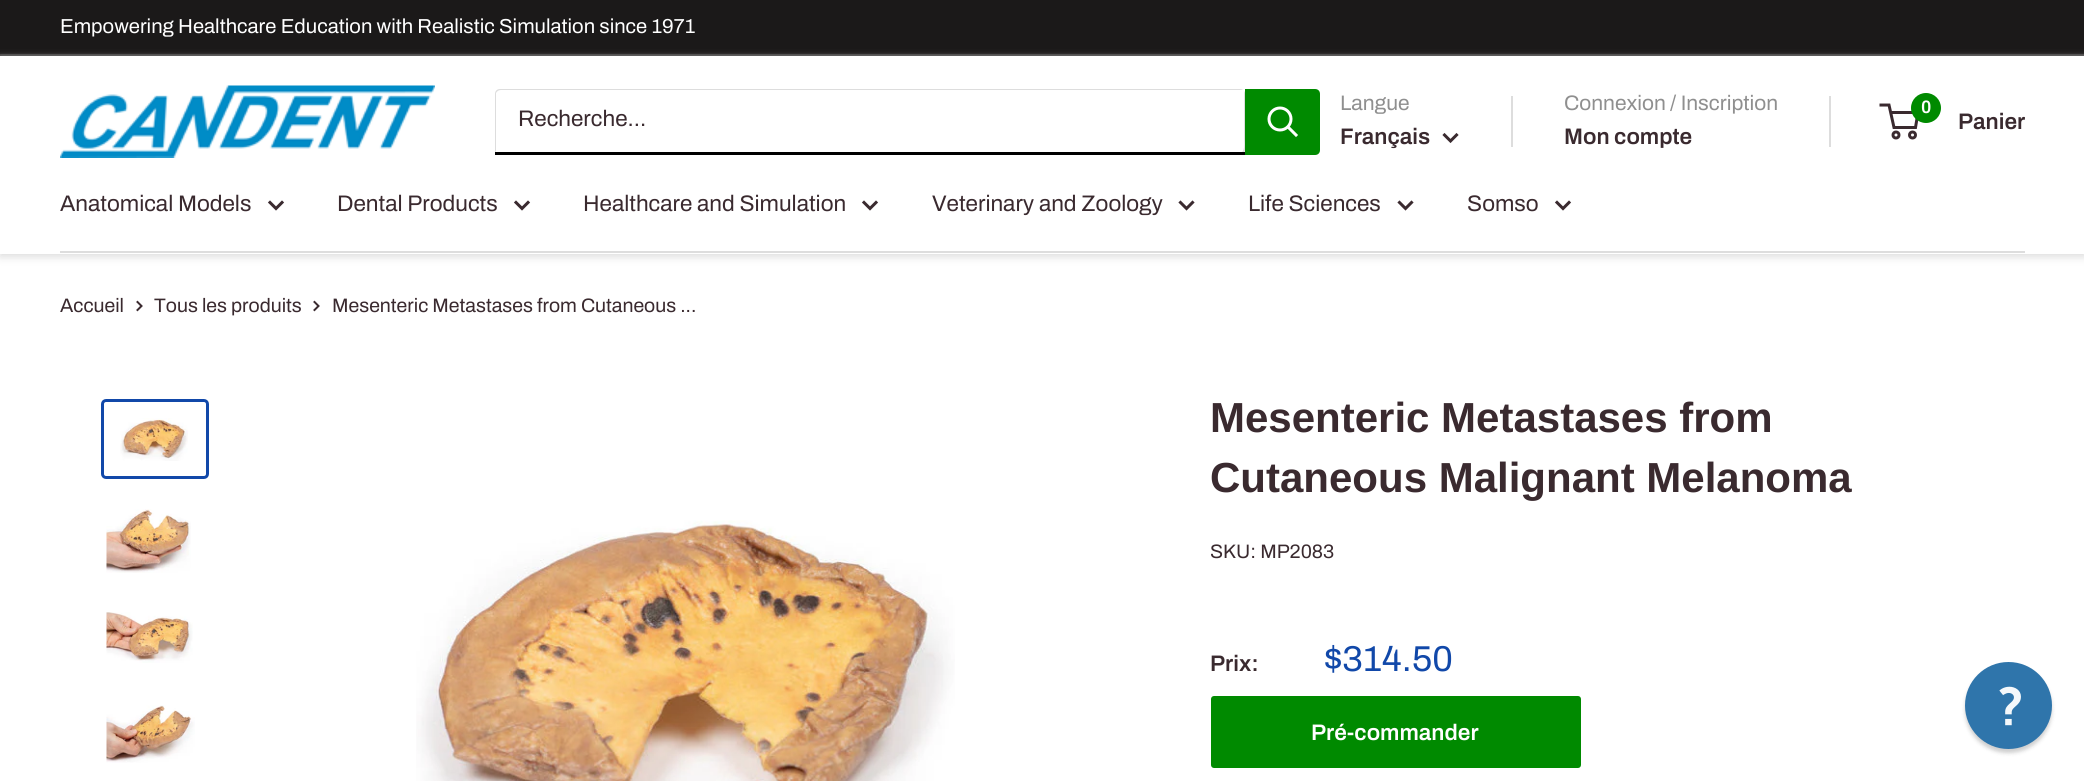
import math
import cairo

surface = cairo.ImageSurface(cairo.FORMAT_RGB24, 2084, 781)
cr = cairo.Context(surface)
options = cairo.FontOptions()
options.set_hint_metrics(cairo.HINT_METRICS_OFF)
options.set_hint_style(cairo.HINT_STYLE_NONE)
cr.set_font_options(options)
cr.set_miter_limit(4)


def rgb(code):
    cr.set_source_rgb(*(v / 255 for v in bytes.fromhex(code[-6:])))


def rrect(x, y, w, h, r):
    cr.new_sub_path()
    for i, (u, v) in enumerate([(x + w - r, y + h - r), (x + r, y + h - r), (x + r, y + r), (x + w - r, y + r)]):
        cr.arc(u, v, r, i * math.pi / 2, (i + 1) * math.pi / 2)
    cr.close_path()


def soft_shadow(x, y, w, h, r, blur, alpha):
    cr.push_group_with_content(cairo.CONTENT_ALPHA)
    cr.set_operator(cairo.OPERATOR_SOURCE)
    for i in range(15, -16, -2):
        e = blur * i / 6
        if min(w, h) + 2 * e > 0:
            cr.set_source_rgba(0, 0, 0, alpha * math.erfc((i - 1) / 8.5) / 2)
            rrect(x - e, y - e, w + 2 * e, h + 2 * e, max(0, min(r + e + blur * .6, min(w, h) / 2 + e)))
            cr.fill()
    cr.mask(cr.pop_group())


def image(path, x, y, w, h):
    cr.save()
    cr.set_source_surface(cairo.ImageSurface.create_from_png(path), x, y)
    cr.rectangle(x, y, w, h)
    cr.fill()
    cr.restore()


rgb("#ffffff")
cr.paint()
rgb("#1b1919")
cr.rectangle(0, 0, 2084, 54)
cr.fill()
rgb("#3e3c3c")
cr.rectangle(0, 54, 2084, 2)
cr.fill()
cr.save()
cr.set_fill_rule(cairo.FILL_RULE_EVEN_ODD)
cr.new_path()
cr.move_to(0, 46)
cr.line_to(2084, 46)
cr.line_to(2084, 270)
cr.line_to(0, 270)
cr.close_path()
cr.move_to(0, 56)
cr.line_to(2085, 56)
cr.line_to(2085, 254)
cr.line_to(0, 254)
cr.close_path()
cr.clip()
rgb("#dddddd")
soft_shadow(0, 59, 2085, 198, 0, 4, 1)
cr.restore()
image("img/1.png", 60, 85, 375, 73)
rgb("#dddddd")
cr.new_path()
cr.move_to(495, 152)
cr.curve_to(496, 154, 498, 155, 500, 155)
cr.line_to(1240, 155)
cr.curve_to(1243, 155, 1245, 153, 1245, 150)
cr.line_to(1245, 94)
cr.curve_to(1245, 93, 1245, 92, 1244, 91)
cr.line_to(1244, 139)
cr.curve_to(1244, 142, 1246, 153, 1239, 153)
cr.line_to(498, 153)
cr.close_path()
cr.fill()
cr.new_path()
cr.move_to(501, 90)
cr.line_to(1243, 90)
cr.curve_to(1242, 89, 1241, 89, 1240, 89)
cr.line_to(500, 89)
cr.curve_to(497, 89, 495, 91, 495, 94)
cr.line_to(495, 150)
cr.curve_to(495, 152, 496, 153, 497, 154)
cr.line_to(496, 152)
cr.line_to(496, 93)
cr.curve_to(497, 91, 499, 90, 501, 90)
cr.close_path()
cr.fill()
rgb("#000000")
cr.rectangle(495, 152, 750, 3)
cr.fill()
rgb("#008a00")
cr.new_path()
cr.move_to(1245, 89)
cr.line_to(1315, 89)
cr.curve_to(1318, 89, 1320, 91, 1320, 94)
cr.line_to(1320, 150)
cr.curve_to(1320, 153, 1318, 155, 1315, 155)
cr.line_to(1245, 155)
cr.close_path()
cr.fill()
cr.new_path()
cr.move_to(1296, 135)
cr.line_to(1288.5, 127.5)
rgb("#ffffff")
cr.set_line_width(3)
cr.set_line_cap(cairo.LINE_CAP_SQUARE)
cr.stroke()
cr.arc(1280, 119, 11, 0, 2 * math.pi)
cr.set_line_cap(cairo.LINE_CAP_BUTT)
cr.stroke()
cr.new_path()
cr.move_to(1456.5, 135)
cr.line_to(1450.5, 141)
cr.line_to(1444.5, 135)
rgb("#3a2a2f")
cr.set_line_cap(cairo.LINE_CAP_SQUARE)
cr.stroke()
rgb("#dddddd")
cr.rectangle(1511, 96, 2, 51)
cr.fill()
cr.rectangle(1829, 96, 2, 51)
cr.fill()
cr.arc(1896, 135, 3, 0, 2 * math.pi)
rgb("#3a2a2f")
cr.set_line_cap(cairo.LINE_CAP_BUTT)
cr.stroke()
cr.arc(1912.5, 135, 3, 0, 2 * math.pi)
cr.stroke()
cr.new_path()
cr.move_to(1890.5, 112.5)
cr.line_to(1918, 112.5)
cr.line_to(1915.5, 127.5)
cr.line_to(1894, 127.5)
cr.line_to(1889, 105)
cr.line_to(1879.5, 105)
cr.stroke()
rgb("#008a00")
cr.arc(1926, 108, 15, 0, 2 * math.pi)
cr.fill()
rgb("#ffffff")
cr.rectangle(0, 253, 2084, 1)
cr.fill()
rgb("#dddddd")
cr.rectangle(60, 251, 1965, 2)
cr.fill()
cr.new_path()
cr.move_to(282, 202.5)
cr.line_to(276, 208.5)
cr.line_to(270, 202.5)
rgb("#3a2a2f")
cr.set_line_cap(cairo.LINE_CAP_SQUARE)
cr.stroke()
cr.new_path()
cr.move_to(528, 202.5)
cr.line_to(522, 208.5)
cr.line_to(516, 202.5)
cr.stroke()
cr.new_path()
cr.move_to(876, 202.5)
cr.line_to(870, 208.5)
cr.line_to(864, 202.5)
cr.stroke()
cr.new_path()
cr.move_to(1192.5, 202.5)
cr.line_to(1186.5, 208.5)
cr.line_to(1180.5, 202.5)
cr.stroke()
cr.new_path()
cr.move_to(1411.5, 202.5)
cr.line_to(1405.5, 208.5)
cr.line_to(1399.5, 202.5)
cr.stroke()
cr.new_path()
cr.move_to(1569, 202.5)
cr.line_to(1563, 208.5)
cr.line_to(1557, 202.5)
cr.stroke()
cr.new_path()
cr.move_to(137.5, 302)
cr.line_to(141.5, 306)
cr.line_to(137.5, 310)
cr.set_line_width(2)
cr.stroke()
cr.new_path()
cr.move_to(314.5, 302)
cr.line_to(318.5, 306)
cr.line_to(314.5, 310)
cr.stroke()
rrect(102.5, 400.5, 105, 77, 3.5)
rgb("#1148a9")
cr.set_line_width(3)
cr.set_line_cap(cairo.LINE_CAP_BUTT)
cr.stroke()
image("img/2.png", 120, 418, 68, 43)
image("img/3.png", 106, 509, 85, 64)
image("img/4.png", 106, 612, 87, 51)
image("img/5.png", 106, 705, 89, 58)
image("img/6.png", 416, 520, 539, 261)
rgb("#008a00")
rrect(1211, 696, 370, 72, 3)
cr.fill()
rgb("#0d0d0d")
soft_shadow(1965, 666, 87, 87, 43.5, 2, 0.2)
rgb("#2f75ab")
cr.arc(2008.5, 705.5, 43.5, 0, 2 * math.pi)
cr.fill()
image("img/7.png", 1999, 686, 22, 40)
cr.select_font_face("Archivo")
cr.set_font_size(20.25)
rgb("#ffffff")
cr.move_to(60, 33)
cr.show_text("Empowering Healthcare Education with Realistic Simulation since 1971")
cr.set_font_size(22.5)
rgb("#3a2a2f")
cr.move_to(518, 126)
cr.show_text("Recherche...")
cr.set_font_size(21)
rgb("#8f8f8f")
cr.move_to(1340, 110)
cr.show_text("Langue")
cr.select_font_face("Archivo SemiBold")
cr.set_font_size(22.5)
rgb("#3a2a2f")
cr.move_to(1340, 144)
cr.show_text("Français")
cr.select_font_face("Archivo")
cr.set_font_size(21)
rgb("#8f8f8f")
cr.move_to(1564, 110)
cr.show_text("Connexion / Inscription")
cr.select_font_face("Archivo SemiBold")
cr.set_font_size(22.5)
rgb("#3a2a2f")
cr.move_to(1564, 144)
cr.show_text("Mon compte")
cr.set_font_size(18)
rgb("#ffffff")
cr.move_to(1921, 113)
cr.show_text("0")
cr.set_font_size(22.5)
rgb("#3a2a2f")
cr.move_to(1958, 129)
cr.show_text("Panier")
cr.select_font_face("Archivo")
for x, y, s in [
    (60, 211, "Anatomical Models"),
    (337, 211, "Dental Products"),
    (583, 211, "Healthcare and Simulation"),
    (932, 211, "Veterinary and Zoology"),
    (1248, 211, "Life Sciences"),
    (1467, 211, "Somso"),
]:
    cr.move_to(x, y)
    cr.show_text(s)
cr.set_font_size(19.5)
for x, y, s in [
    (60, 312, "Accueil"),
    (154, 312, "Tous les produits"),
    (332, 312, "Mesenteric Metastases from Cutaneous ..."),
]:
    cr.move_to(x, y)
    cr.show_text(s)
cr.select_font_face("Arimo", cairo.FONT_SLANT_NORMAL, cairo.FONT_WEIGHT_BOLD)
cr.set_font_size(42)
cr.move_to(1210, 432)
cr.show_text("Mesenteric Metastases from")
cr.move_to(1210, 492)
cr.show_text("Cutaneous Malignant Melanoma")
cr.select_font_face("Archivo")
cr.set_font_size(19.5)
cr.move_to(1210, 558)
cr.show_text("SKU: MP2083")
cr.select_font_face("Archivo SemiBold")
cr.set_font_size(22.5)
cr.move_to(1210, 671)
cr.show_text("Prix:")
cr.select_font_face("Archivo")
cr.set_font_size(36)
rgb("#1148a9")
cr.move_to(1324, 671)
cr.show_text("$314.50")
cr.select_font_face("Archivo SemiBold")
cr.set_font_size(22.5)
rgb("#ffffff")
cr.move_to(1311, 740)
cr.show_text("Pré-commander")
surface.write_to_png("page.png")
